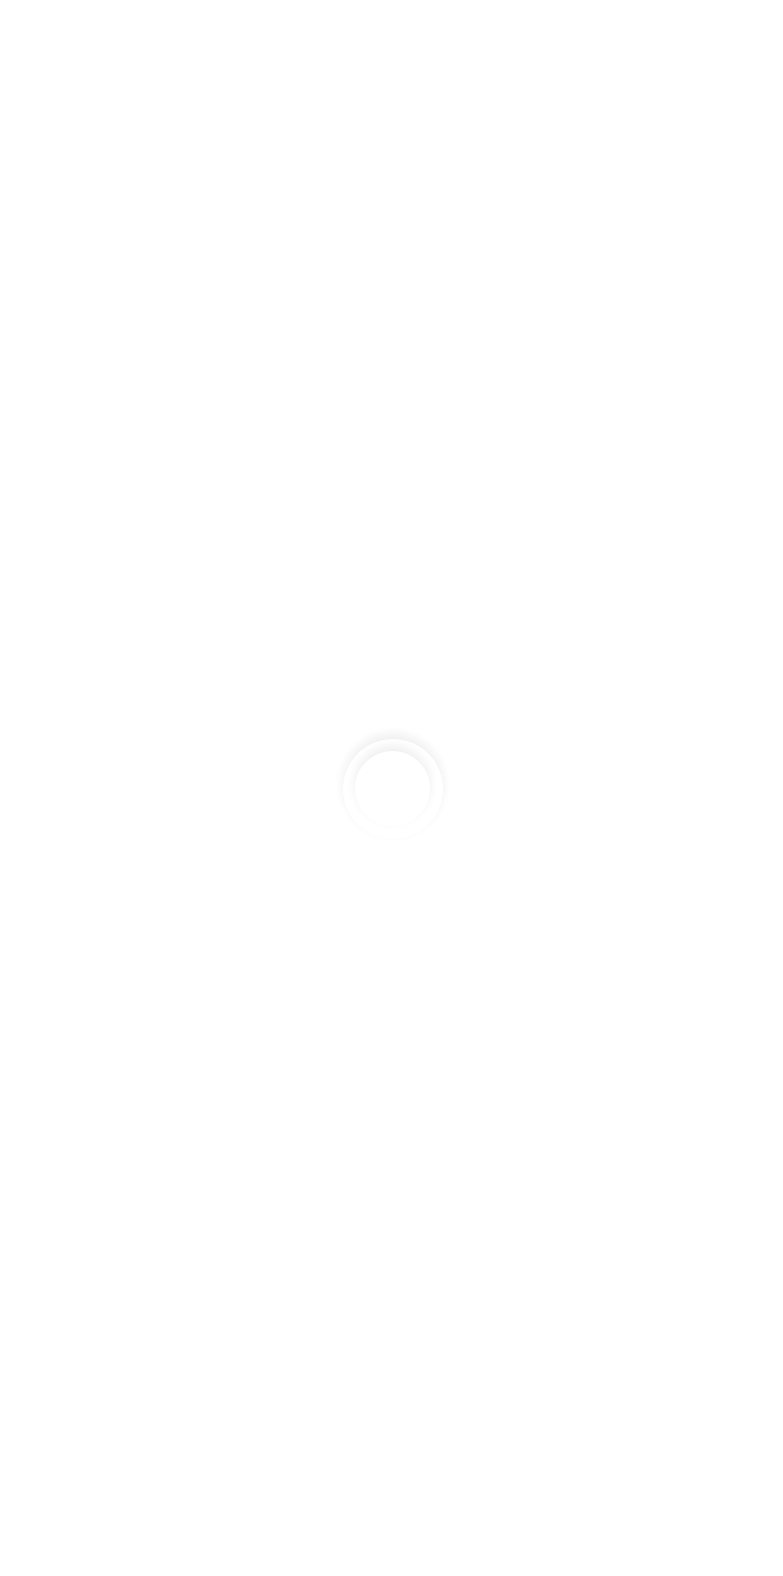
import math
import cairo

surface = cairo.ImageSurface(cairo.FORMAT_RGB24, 783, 1576)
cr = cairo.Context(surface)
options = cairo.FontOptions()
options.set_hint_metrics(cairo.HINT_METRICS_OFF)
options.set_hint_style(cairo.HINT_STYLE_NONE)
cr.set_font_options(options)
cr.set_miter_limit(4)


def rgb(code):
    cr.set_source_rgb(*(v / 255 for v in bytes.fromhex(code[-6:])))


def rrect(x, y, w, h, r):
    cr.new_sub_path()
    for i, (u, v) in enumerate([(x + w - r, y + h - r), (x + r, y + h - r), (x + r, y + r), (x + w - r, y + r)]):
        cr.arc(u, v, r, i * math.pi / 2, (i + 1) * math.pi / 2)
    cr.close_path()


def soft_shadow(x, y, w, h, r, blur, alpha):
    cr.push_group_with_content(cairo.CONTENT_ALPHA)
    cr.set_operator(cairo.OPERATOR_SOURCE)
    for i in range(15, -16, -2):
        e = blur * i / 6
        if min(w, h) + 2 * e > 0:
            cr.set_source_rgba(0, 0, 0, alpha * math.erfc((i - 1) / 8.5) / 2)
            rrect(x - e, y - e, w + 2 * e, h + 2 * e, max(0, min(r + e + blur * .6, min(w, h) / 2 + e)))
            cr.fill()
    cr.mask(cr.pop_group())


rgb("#ffffff")
cr.paint()
rgb("#333333")
soft_shadow(343, 734, 100, 100, 50, 5, 0.08)
rgb("#ffffff")
cr.arc(393, 789, 50, 0, 2 * math.pi)
cr.fill()
rgb("#333333")
soft_shadow(355, 746, 75, 75, 37.5, 5, 0.08)
rgb("#ffffff")
cr.arc(392.5, 788.5, 37.5, 0, 2 * math.pi)
cr.fill()
surface.write_to_png("page.png")
